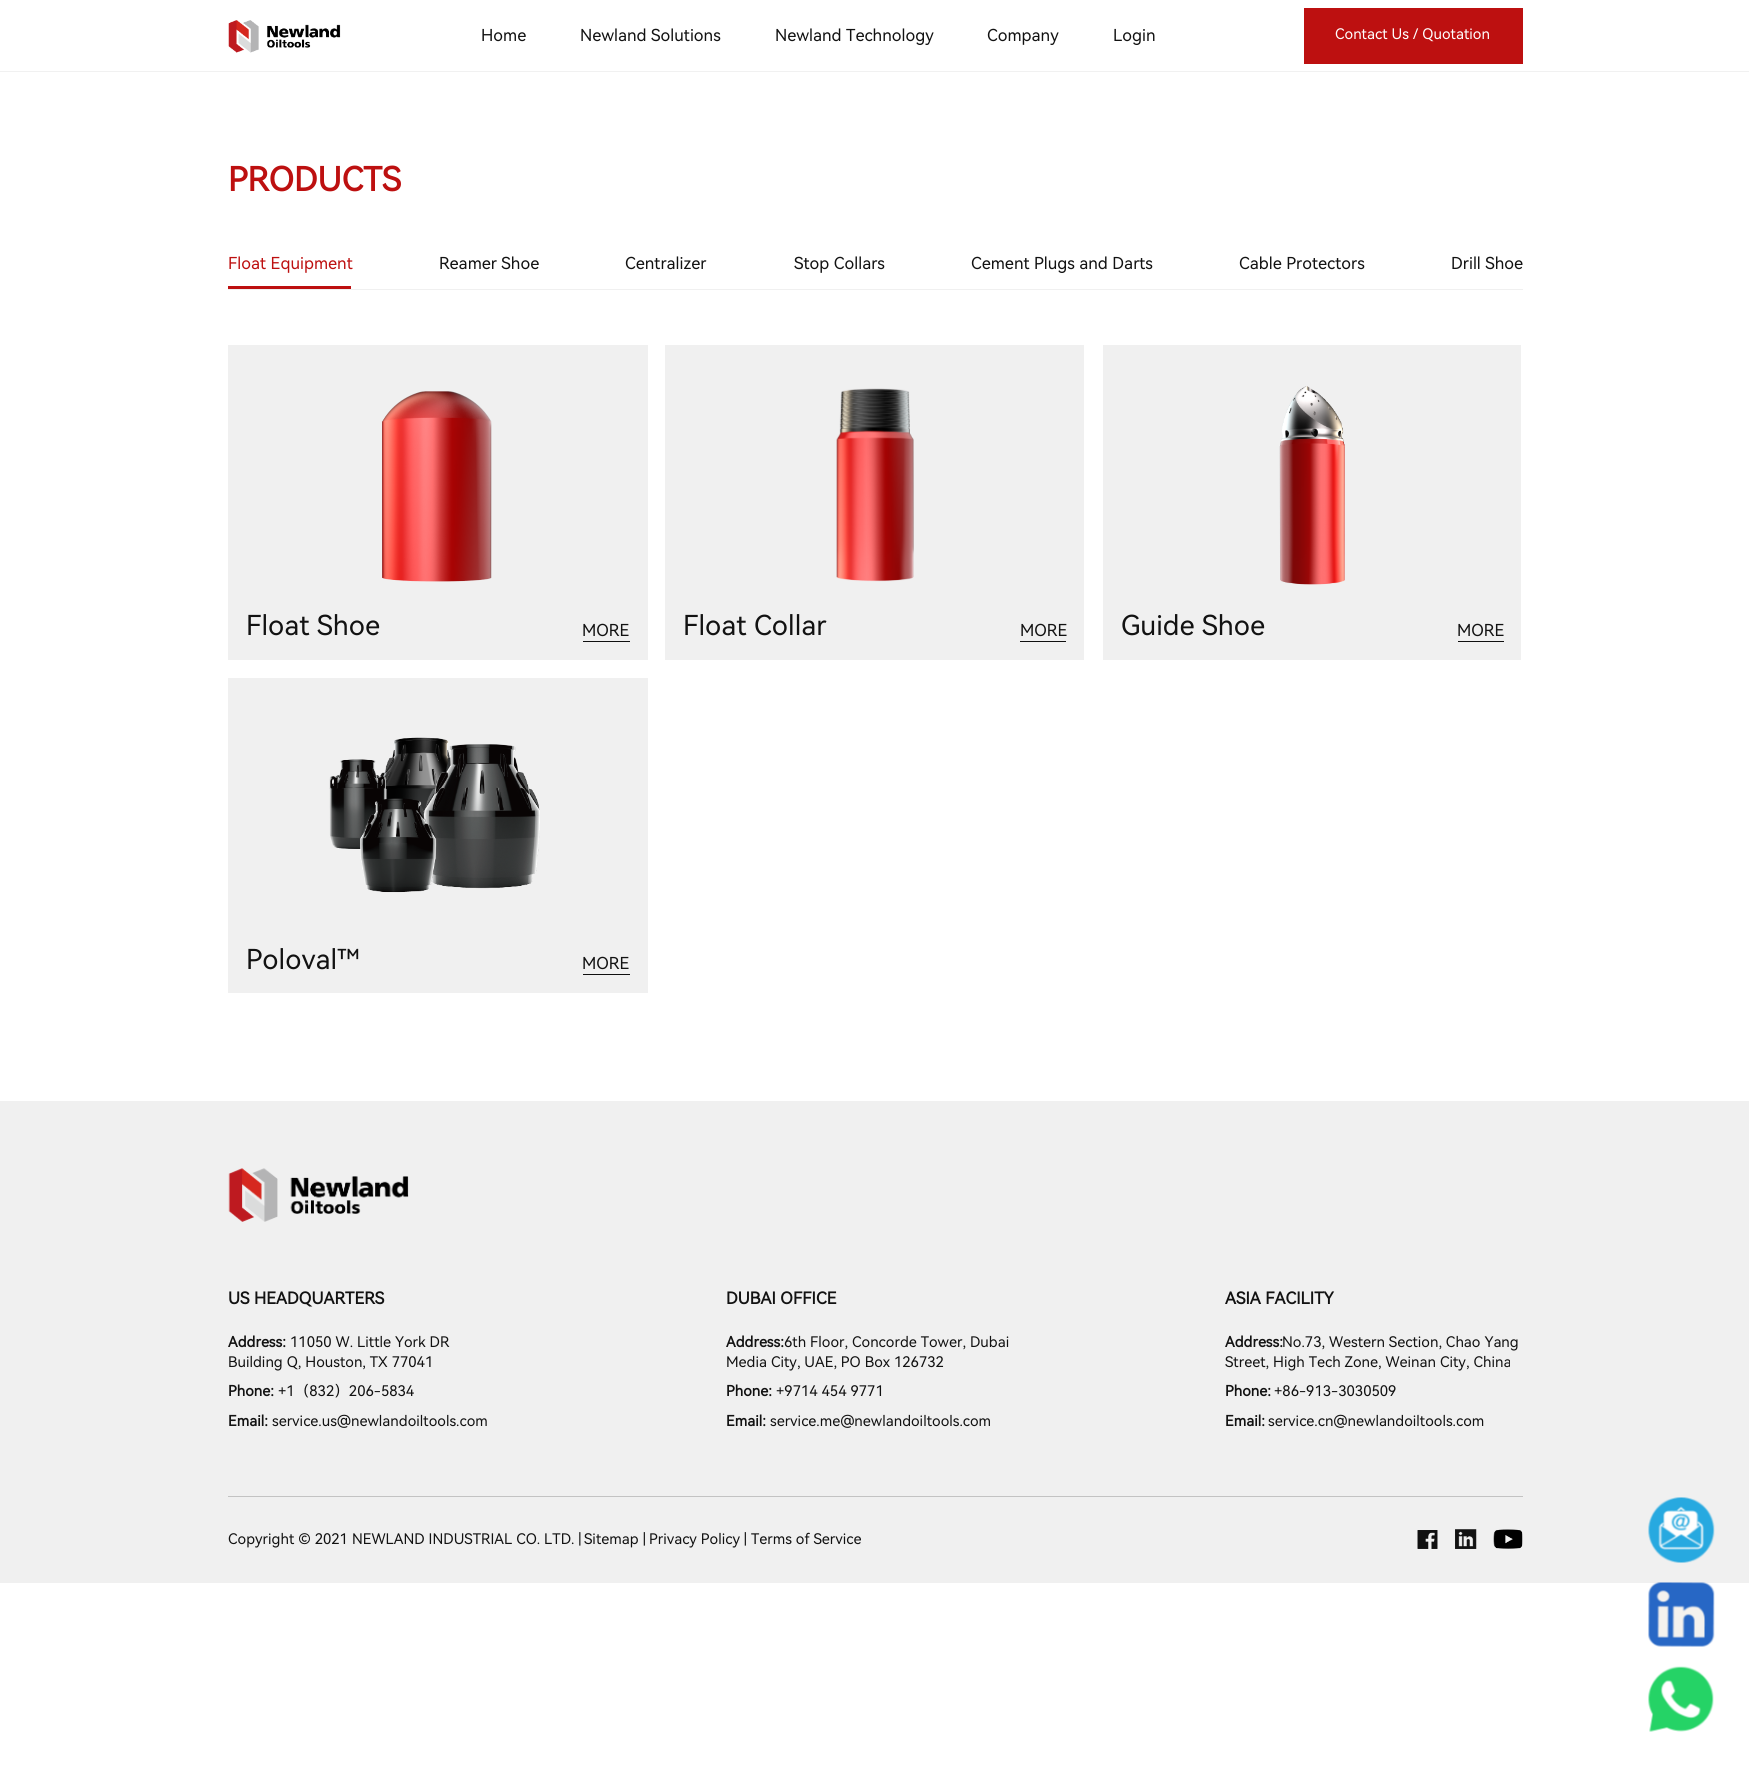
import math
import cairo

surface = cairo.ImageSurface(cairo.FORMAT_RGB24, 1749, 1767)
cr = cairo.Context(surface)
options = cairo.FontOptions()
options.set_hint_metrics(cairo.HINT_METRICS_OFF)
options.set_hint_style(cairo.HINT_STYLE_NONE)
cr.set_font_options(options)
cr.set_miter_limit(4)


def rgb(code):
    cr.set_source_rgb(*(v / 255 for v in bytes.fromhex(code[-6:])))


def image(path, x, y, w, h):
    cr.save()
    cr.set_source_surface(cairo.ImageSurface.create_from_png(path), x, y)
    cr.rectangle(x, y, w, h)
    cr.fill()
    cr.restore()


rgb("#ffffff")
cr.paint()
rgb("#f1f1f1")
cr.rectangle(0, 71, 1749, 1)
cr.fill()
image("img/1.png", 228, 20, 113, 33)
for x, y, w, h, color in [
    (1304, 8, 219, 56, "#bd1010"),
    (228, 289, 1295, 1, "#f0f0f0"),
    (228, 286, 123, 3, "#bd1010"),
    (228, 345, 420, 315, "#f0f0f0"),
]:
    rgb(color)
    cr.rectangle(x, y, w, h)
    cr.fill()
image("img/2.png", 382, 391, 110, 191)
rgb("#101010")
cr.rectangle(583, 641, 47, 1)
cr.fill()
rgb("#f0f0f0")
cr.rectangle(665, 345, 419, 315)
cr.fill()
image("img/3.png", 836, 388, 78, 194)
rgb("#101010")
cr.rectangle(1020, 641, 46, 1)
cr.fill()
rgb("#f0f0f0")
cr.rectangle(1103, 345, 418, 315)
cr.fill()
image("img/4.png", 1279, 386, 66, 199)
rgb("#101010")
cr.rectangle(1458, 641, 46, 1)
cr.fill()
rgb("#f0f0f0")
cr.rectangle(228, 678, 420, 315)
cr.fill()
image("img/5.png", 329, 737, 211, 156)
rgb("#101010")
cr.rectangle(583, 974, 47, 1)
cr.fill()
rgb("#f0f0f0")
cr.rectangle(0, 1101, 1749, 482)
cr.fill()
image("img/6.png", 228, 1168, 181, 54)
rgb("#c3c3c3")
cr.rectangle(228, 1496, 1295, 1)
cr.fill()
image("img/7.png", 1417, 1530, 21, 19)
image("img/8.png", 1455, 1529, 22, 20)
image("img/9.png", 1493, 1529, 30, 20)
image("img/10.png", 1648, 1497, 67, 66)
image("img/11.png", 1648, 1582, 67, 65)
image("img/12.png", 1648, 1666, 66, 66)
cr.select_font_face("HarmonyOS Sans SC")
cr.set_font_size(16.5)
rgb("#121212")
for x, y, s in [
    (481, 41, "Home"),
    (580, 41, "Newland Solutions"),
    (775, 41, "Newland Technology"),
    (987, 41, "Company"),
    (1113, 41, "Login"),
]:
    cr.move_to(x, y)
    cr.show_text(s)
cr.set_font_size(14.6)
rgb("#ffffff")
cr.move_to(1335, 39)
cr.show_text("Contact Us / Quotation")
cr.select_font_face("HarmonyOS Sans SC", cairo.FONT_SLANT_NORMAL, cairo.FONT_WEIGHT_BOLD)
cr.set_font_size(33)
rgb("#bd1010")
cr.move_to(228, 191)
cr.show_text("PRODUCTS")
cr.select_font_face("HarmonyOS Sans SC")
cr.set_font_size(16.5)
cr.move_to(228, 269)
cr.show_text("Float Equipment")
rgb("#121212")
for x, y, s in [
    (439, 269, "Reamer Shoe"),
    (625, 269, "Centralizer"),
    (794, 269, "Stop Collars"),
    (971, 269, "Cement Plugs and Darts"),
    (1239, 269, "Cable Protectors"),
    (1451, 269, "Drill Shoe"),
]:
    cr.move_to(x, y)
    cr.show_text(s)
cr.set_font_size(27.5)
cr.move_to(246, 635)
cr.show_text("Float Shoe")
cr.set_font_size(16.5)
cr.move_to(582, 636)
cr.show_text("MORE")
cr.set_font_size(27.5)
cr.move_to(683, 635)
cr.show_text("Float Collar")
cr.set_font_size(16.5)
cr.move_to(1020, 636)
cr.show_text("MORE")
cr.set_font_size(27.5)
cr.move_to(1121, 635)
cr.show_text("Guide Shoe")
cr.set_font_size(16.5)
cr.move_to(1457, 636)
cr.show_text("MORE")
cr.set_font_size(27.5)
cr.move_to(246, 969)
cr.show_text("Poloval™")
cr.set_font_size(16.5)
cr.move_to(582, 969)
cr.show_text("MORE")
cr.select_font_face("HarmonyOS Sans SC", cairo.FONT_SLANT_NORMAL, cairo.FONT_WEIGHT_BOLD)
cr.move_to(228, 1304)
cr.show_text("US HEADQUARTERS")
cr.set_font_size(14.6)
cr.move_to(228, 1347)
cr.show_text("Address:")
cr.select_font_face("HarmonyOS Sans SC")
cr.move_to(290, 1347)
cr.show_text("11050 W. Little York DR")
cr.move_to(228, 1367)
cr.show_text("Building Q, Houston, TX 77041")
cr.select_font_face("HarmonyOS Sans SC", cairo.FONT_SLANT_NORMAL, cairo.FONT_WEIGHT_BOLD)
cr.move_to(228, 1396)
cr.show_text("Phone:")
cr.select_font_face("HarmonyOS Sans SC")
cr.move_to(278, 1396)
cr.show_text("+1（832）206-5834")
cr.select_font_face("HarmonyOS Sans SC", cairo.FONT_SLANT_NORMAL, cairo.FONT_WEIGHT_BOLD)
cr.move_to(228, 1426)
cr.show_text("Email:")
cr.select_font_face("HarmonyOS Sans SC")
cr.move_to(272, 1426)
cr.show_text("service.us@newlandoiltools.com")
cr.select_font_face("HarmonyOS Sans SC", cairo.FONT_SLANT_NORMAL, cairo.FONT_WEIGHT_BOLD)
cr.set_font_size(16.5)
cr.move_to(726, 1304)
cr.show_text("DUBAI OFFICE")
cr.set_font_size(14.6)
cr.move_to(726, 1347)
cr.show_text("Address:")
cr.select_font_face("HarmonyOS Sans SC")
cr.move_to(784, 1347)
cr.show_text("6th Floor, Concorde Tower, Dubai")
cr.move_to(726, 1367)
cr.show_text("Media City, UAE, PO Box 126732")
cr.select_font_face("HarmonyOS Sans SC", cairo.FONT_SLANT_NORMAL, cairo.FONT_WEIGHT_BOLD)
cr.move_to(726, 1396)
cr.show_text("Phone:")
cr.select_font_face("HarmonyOS Sans SC")
cr.move_to(776, 1396)
cr.show_text("+9714 454 9771")
cr.select_font_face("HarmonyOS Sans SC", cairo.FONT_SLANT_NORMAL, cairo.FONT_WEIGHT_BOLD)
cr.move_to(726, 1426)
cr.show_text("Email:")
cr.select_font_face("HarmonyOS Sans SC")
cr.move_to(770, 1426)
cr.show_text("service.me@newlandoiltools.com")
cr.select_font_face("HarmonyOS Sans SC", cairo.FONT_SLANT_NORMAL, cairo.FONT_WEIGHT_BOLD)
cr.set_font_size(16.5)
cr.move_to(1225, 1304)
cr.show_text("ASIA FACILITY")
cr.set_font_size(14.6)
cr.move_to(1225, 1347)
cr.show_text("Address:")
cr.select_font_face("HarmonyOS Sans SC")
cr.move_to(1282, 1347)
cr.show_text("No.73, Western Section, Chao Yang")
cr.move_to(1225, 1367)
cr.show_text("Street, High Tech Zone, Weinan City, China")
cr.select_font_face("HarmonyOS Sans SC", cairo.FONT_SLANT_NORMAL, cairo.FONT_WEIGHT_BOLD)
cr.move_to(1225, 1396)
cr.show_text("Phone:")
cr.select_font_face("HarmonyOS Sans SC")
cr.move_to(1274, 1396)
cr.show_text("+86-913-3030509")
cr.select_font_face("HarmonyOS Sans SC", cairo.FONT_SLANT_NORMAL, cairo.FONT_WEIGHT_BOLD)
cr.move_to(1225, 1426)
cr.show_text("Email:")
cr.select_font_face("HarmonyOS Sans SC")
for x, y, s in [
    (1268, 1426, "service.cn@newlandoiltools.com"),
    (228, 1544, "Copyright © 2021 NEWLAND INDUSTRIAL CO. LTD. |"),
    (584, 1544, "Sitemap"),
    (643, 1544, "|"),
    (649, 1544, "Privacy Policy"),
    (744, 1544, "|"),
    (751, 1544, "Terms of Service"),
]:
    cr.move_to(x, y)
    cr.show_text(s)
surface.write_to_png("page.png")
